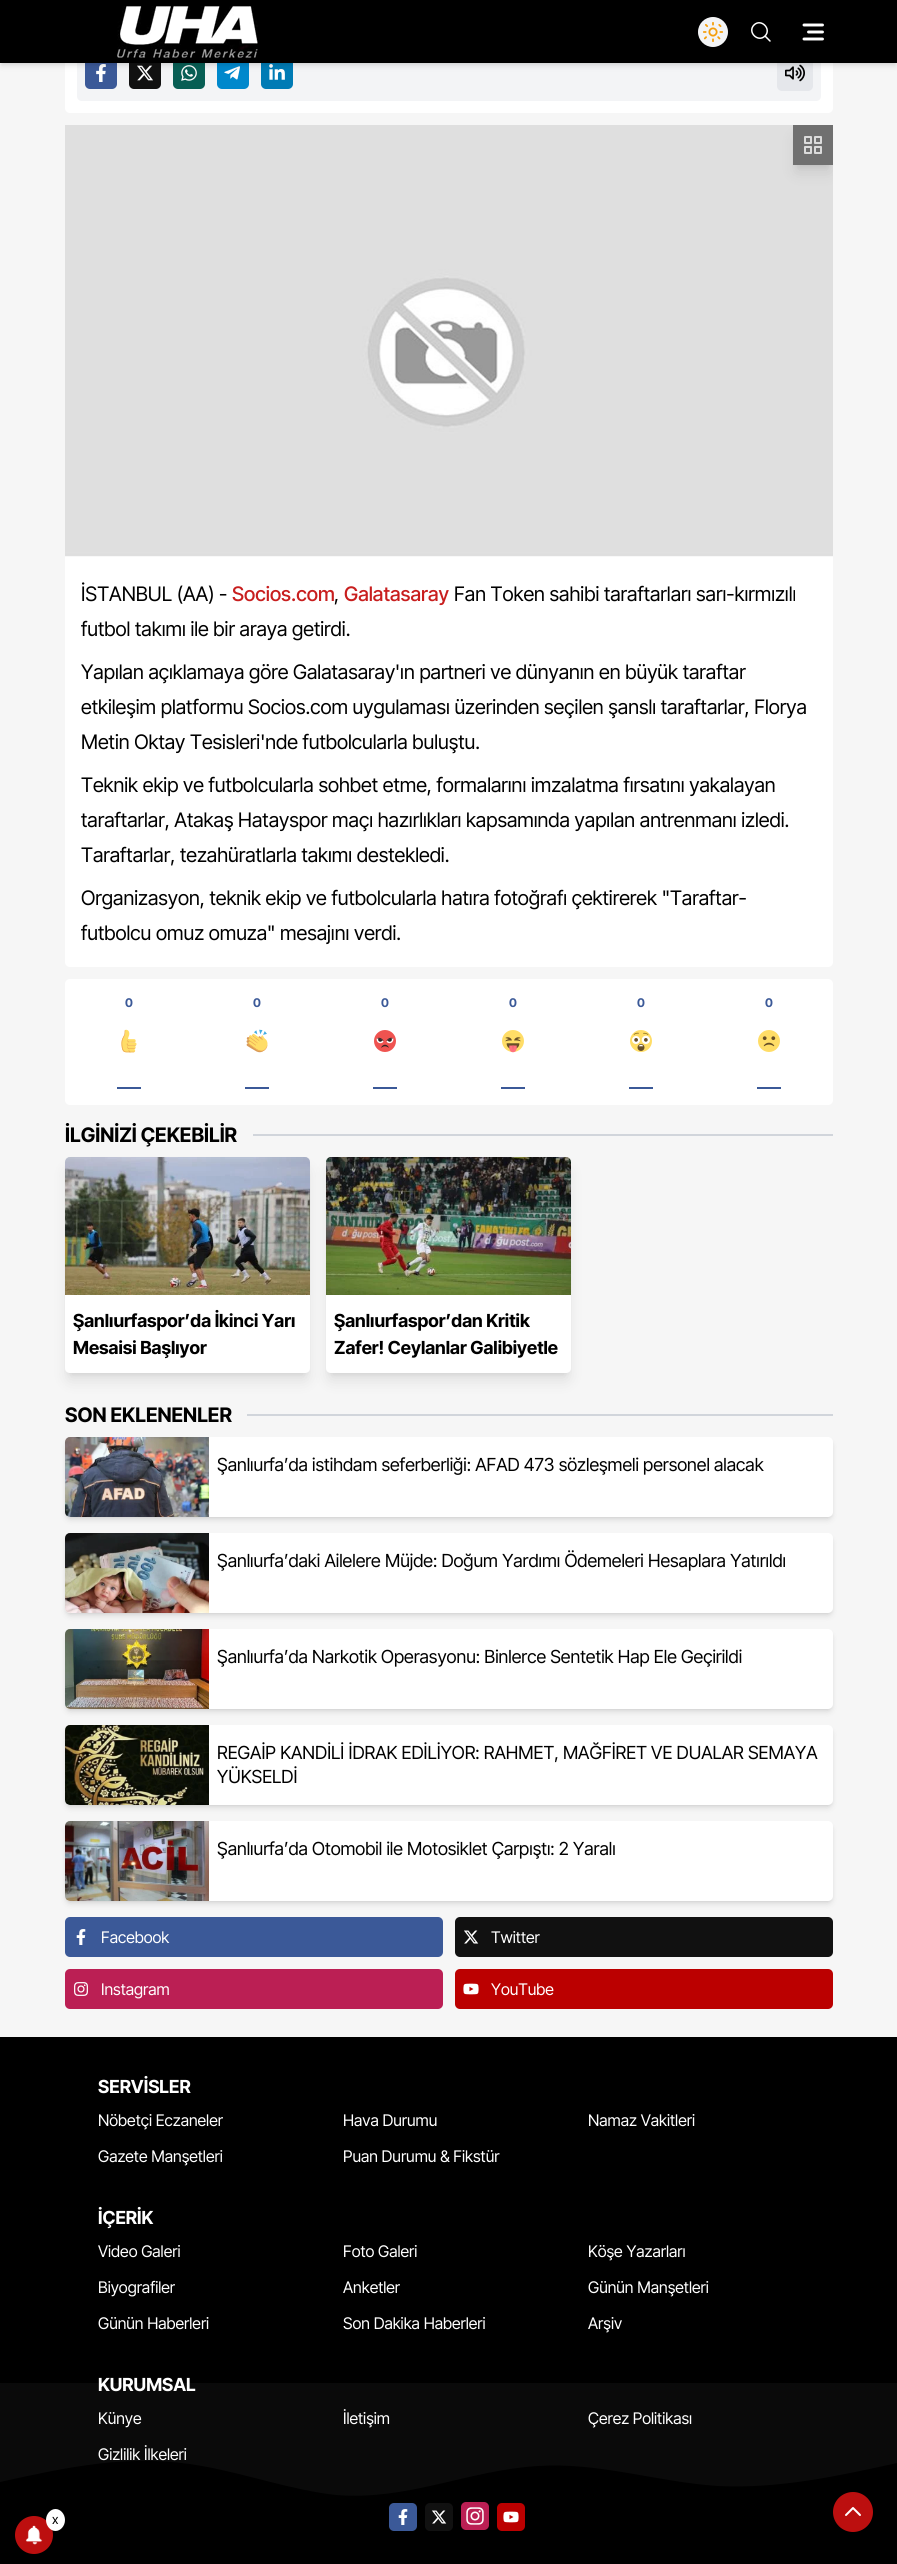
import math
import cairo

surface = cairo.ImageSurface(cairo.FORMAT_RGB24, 897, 2564)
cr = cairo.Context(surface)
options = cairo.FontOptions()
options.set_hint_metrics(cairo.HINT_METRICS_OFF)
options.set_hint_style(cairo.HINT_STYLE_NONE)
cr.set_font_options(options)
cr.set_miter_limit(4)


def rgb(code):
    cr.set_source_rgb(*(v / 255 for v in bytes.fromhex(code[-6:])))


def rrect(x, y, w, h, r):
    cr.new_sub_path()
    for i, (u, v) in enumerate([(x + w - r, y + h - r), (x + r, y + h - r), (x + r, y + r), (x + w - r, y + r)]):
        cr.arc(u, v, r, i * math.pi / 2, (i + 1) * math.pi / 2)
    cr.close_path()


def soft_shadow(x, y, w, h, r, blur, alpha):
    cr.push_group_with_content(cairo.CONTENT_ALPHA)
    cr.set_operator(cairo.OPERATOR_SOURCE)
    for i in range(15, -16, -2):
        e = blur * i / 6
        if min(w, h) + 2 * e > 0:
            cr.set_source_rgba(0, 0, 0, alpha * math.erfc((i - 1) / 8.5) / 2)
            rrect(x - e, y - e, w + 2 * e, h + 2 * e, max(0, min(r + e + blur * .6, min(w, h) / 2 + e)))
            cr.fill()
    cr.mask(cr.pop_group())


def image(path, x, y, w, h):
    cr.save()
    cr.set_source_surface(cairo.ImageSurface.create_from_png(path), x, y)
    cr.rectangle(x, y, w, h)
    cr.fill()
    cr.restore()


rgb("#f6f6f6")
cr.paint()
rgb("#ffffff")
rrect(65, -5, 768, 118, 5)
cr.fill()
rgb("#f3f4f6")
cr.new_path()
cr.move_to(82, 45)
cr.line_to(816, 45)
cr.curve_to(819, 45, 821, 47, 821, 49)
cr.line_to(821, 96)
cr.curve_to(821, 99, 819, 101, 816, 101)
cr.line_to(82, 101)
cr.curve_to(79, 101, 77, 99, 77, 96)
cr.line_to(77, 49)
cr.curve_to(77, 47, 79, 45, 82, 45)
cr.close_path()
cr.fill()
rgb("#3b5998")
rrect(85, 57, 32, 32, 5)
cr.fill()
image("img/3.png", 96, 64, 10, 18)
rgb("#111111")
rrect(129, 57, 32, 32, 5)
cr.fill()
image("img/4.png", 137, 65, 16, 16)
rgb("#075e54")
rrect(173, 57, 32, 32, 5)
cr.fill()
image("img/5.png", 181, 65, 16, 16)
rgb("#0088cc")
rrect(217, 57, 32, 32, 5)
cr.fill()
image("img/6.png", 224, 66, 16, 14)
rgb("#007bb5")
rrect(261, 57, 32, 32, 5)
cr.fill()
image("img/7.png", 269, 64, 16, 16)
rgb("#e5e7eb")
rrect(777, 55, 36, 36, 5)
cr.fill()
image("img/8.png", 785, 64, 20, 18)
rgb("#000000")
soft_shadow(2, 4, 893, 59, 0, 2, 0.1)
soft_shadow(1, 5, 895, 61, 0, 3, 0.1)
rgb("#000000")
cr.rectangle(0, 0, 897, 63)
cr.fill()
image("img/1.png", 117, 6, 141, 52)
rgb("#f3f4f6")
cr.arc(713, 32, 15, 0, 2 * math.pi)
cr.fill()
image("img/2.png", 703, 22, 20, 20)
cr.new_path()
cr.move_to(770, 41)
cr.line_to(765, 36)
cr.move_to(765, 36)
cr.curve_to(772, 29, 761, 18, 754, 25)
cr.curve_to(747, 32, 758, 43, 765, 36)
cr.close_path()
rgb("#ffffff")
cr.set_line_width(1.5)
cr.set_line_cap(cairo.LINE_CAP_ROUND)
cr.set_line_join(cairo.LINE_JOIN_ROUND)
cr.stroke()
cr.new_path()
cr.move_to(822.5, 25)
cr.line_to(804, 25)
cr.move_to(822.5, 32)
cr.line_to(808.5, 32)
cr.move_to(822.5, 39)
cr.line_to(804, 39)
cr.set_line_width(2.9)
cr.stroke()
rrect(65, 125, 768, 842, 5)
cr.fill()
image("img/10.png", 65, 125, 768, 432)
rgb("#000000")
soft_shadow(797, 133, 32, 32, 0, 3, 0.1)
cr.save()
cr.rectangle(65, 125, 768, 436)
cr.clip()
soft_shadow(796, 138, 34, 34, 0, 7.5, 0.1)
cr.restore()
rgb("#707070")
cr.rectangle(793, 125, 40, 40)
cr.fill()
image("img/9.png", 804, 136, 18, 18)
rgb("#ffffff")
rrect(65, 979, 768, 126, 5)
cr.fill()
image("img/11.png", 121, 1029, 16, 24)
rgb("#3b5998")
cr.rectangle(117, 1087, 24, 2)
cr.fill()
image("img/12.png", 246, 1029, 22, 24)
cr.rectangle(245, 1087, 24, 2)
cr.fill()
image("img/13.png", 374, 1030, 22, 22)
cr.rectangle(373, 1087, 24, 2)
cr.fill()
image("img/14.png", 502, 1030, 22, 23)
cr.rectangle(501, 1087, 24, 2)
cr.fill()
image("img/15.png", 630, 1030, 22, 22)
cr.rectangle(629, 1087, 24, 2)
cr.fill()
image("img/16.png", 758, 1030, 22, 22)
cr.rectangle(757, 1087, 24, 2)
cr.fill()
rgb("#d1d5db")
cr.rectangle(253, 1134, 580, 2)
cr.fill()
rgb("#000000")
soft_shadow(69, 1165, 237, 208, 1, 3, 0.1)
soft_shadow(68, 1170, 239, 210, 2, 7.5, 0.1)
image("img/17.png", 65, 1157, 245, 138)
rgb("#ffffff")
cr.new_path()
cr.move_to(65, 1295)
cr.line_to(310, 1295)
cr.line_to(310, 1368)
cr.curve_to(310, 1371, 308, 1373, 305, 1373)
cr.line_to(70, 1373)
cr.curve_to(67, 1373, 65, 1371, 65, 1368)
cr.close_path()
cr.fill()
rgb("#000000")
soft_shadow(330, 1165, 237, 208, 1, 3, 0.1)
soft_shadow(329, 1170, 239, 210, 2, 7.5, 0.1)
image("img/18.png", 326, 1157, 245, 138)
rgb("#ffffff")
cr.new_path()
cr.move_to(326, 1295)
cr.line_to(571, 1295)
cr.line_to(571, 1368)
cr.curve_to(571, 1371, 569, 1373, 566, 1373)
cr.line_to(331, 1373)
cr.curve_to(328, 1373, 326, 1371, 326, 1368)
cr.close_path()
cr.fill()
rgb("#d1d5db")
cr.rectangle(247, 1414, 586, 2)
cr.fill()
rgb("#000000")
soft_shadow(67, 1441, 764, 76, 3, 2, 0.1)
soft_shadow(66, 1442, 766, 78, 4, 3, 0.1)
rgb("#ffffff")
rrect(65, 1437, 768, 80, 5)
cr.fill()
image("img/19.png", 65, 1437, 144, 80)
rgb("#000000")
soft_shadow(67, 1537, 764, 76, 3, 2, 0.1)
soft_shadow(66, 1538, 766, 78, 4, 3, 0.1)
rgb("#ffffff")
rrect(65, 1533, 768, 80, 5)
cr.fill()
image("img/20.png", 65, 1533, 144, 80)
rgb("#000000")
soft_shadow(67, 1633, 764, 76, 3, 2, 0.1)
soft_shadow(66, 1634, 766, 78, 4, 3, 0.1)
rgb("#ffffff")
rrect(65, 1629, 768, 80, 5)
cr.fill()
image("img/21.png", 65, 1629, 144, 80)
rgb("#000000")
soft_shadow(67, 1729, 764, 76, 3, 2, 0.1)
soft_shadow(66, 1730, 766, 78, 4, 3, 0.1)
rgb("#ffffff")
rrect(65, 1725, 768, 80, 5)
cr.fill()
image("img/22.png", 65, 1725, 144, 80)
rgb("#000000")
soft_shadow(67, 1825, 764, 76, 3, 2, 0.1)
soft_shadow(66, 1826, 766, 78, 4, 3, 0.1)
rgb("#ffffff")
rrect(65, 1821, 768, 80, 5)
cr.fill()
image("img/23.png", 65, 1821, 144, 80)
rgb("#3b5998")
rrect(65, 1917, 378, 40, 5)
cr.fill()
image("img/24.png", 76, 1929, 10, 16)
rgb("#111111")
rrect(455, 1917, 378, 40, 5)
cr.fill()
image("img/25.png", 464, 1930, 15, 14)
rgb("#bb1f54")
rrect(65, 1969, 378, 40, 5)
cr.fill()
image("img/26.png", 74, 1982, 14, 14)
rgb("#bb0000")
rrect(455, 1969, 378, 40, 5)
cr.fill()
image("img/27.png", 463, 1983, 16, 12)
rgb("#000000")
cr.rectangle(0, 2037, 897, 527)
cr.fill()
rgb("#bc0f0f")
cr.arc(34, 2535, 19, 0, 2 * math.pi)
cr.fill()
rgb("#ffffff")
cr.new_path()
cr.move_to(55.5, 2509)
cr.curve_to(60.5, 2509, 65, 2514, 65, 2520)
cr.curve_to(65, 2526, 60.5, 2531, 55.5, 2531)
cr.curve_to(50.5, 2531, 46, 2526, 46, 2520)
cr.curve_to(46, 2514, 50.5, 2509, 55.5, 2509)
cr.close_path()
cr.fill()
image("img/28.png", 25, 2525, 18, 20)
rgb("#3b5998")
rrect(389, 2503, 28, 28, 5)
cr.fill()
image("img/24.png", 398, 2509, 10, 16)
rgb("#111111")
rrect(425, 2503, 28, 28, 5)
cr.fill()
image("img/25.png", 432, 2510, 15, 14)
rgb("#bb1f54")
rrect(461, 2502, 28, 28, 5)
cr.fill()
image("img/29.png", 466, 2507, 18, 18)
rgb("#bb0000")
rrect(497, 2503, 28, 28, 5)
cr.fill()
image("img/27.png", 503, 2511, 16, 12)
rgb("#0a0a0a")
cr.new_path()
cr.move_to(0, 2482)
cr.curve_to(68, 2467, 131, 2453, 202, 2466)
cr.curve_to(247, 2474, 291, 2490, 336, 2495)
cr.curve_to(407, 2501, 469, 2470, 538, 2466)
cr.curve_to(599, 2462, 657, 2482, 718, 2486)
cr.curve_to(779, 2489, 838, 2476, 897, 2463)
cr.line_to(897, 2383)
cr.line_to(0, 2383)
cr.close_path()
cr.fill()
rgb("#bc0f0f")
cr.arc(853, 2512, 20, 0, 2 * math.pi)
cr.fill()
cr.new_path()
cr.move_to(846, 2515)
cr.line_to(853, 2508)
cr.line_to(860, 2515)
rgb("#ffffff")
cr.set_line_width(2)
cr.stroke()
cr.select_font_face("Inter Tight")
cr.set_font_size(20)
rgb("#000000")
cr.move_to(81, 601)
cr.show_text("İSTANBUL (AA) -")
cr.select_font_face("Inter Tight Medium")
rgb("#c81e1e")
cr.move_to(232, 601)
cr.show_text("Socios.com")
cr.select_font_face("Inter Tight")
rgb("#000000")
cr.move_to(334, 601)
cr.show_text(",")
cr.select_font_face("Inter Tight Medium")
rgb("#c81e1e")
cr.move_to(344, 601)
cr.show_text("Galatasaray")
cr.select_font_face("Inter Tight")
rgb("#000000")
for x, y, s in [
    (454, 601, "Fan Token sahibi taraftarları sarı-kırmızılı"),
    (81, 636, "futbol takımı ile bir araya getirdi."),
    (81, 679, "Yapılan açıklamaya göre Galatasaray'ın partneri ve dünyanın en büyük taraftar"),
    (81, 714, "etkileşim platformu Socios.com uygulaması üzerinden seçilen şanslı taraftarlar, Florya"),
    (81, 749, "Metin Oktay Tesisleri'nde futbolcularla buluştu."),
    (81, 792, "Teknik ekip ve futbolcularla sohbet etme, formalarını imzalatma fırsatını yakalayan"),
    (81, 827, "taraftarlar, Atakaş Hatayspor maçı hazırlıkları kapsamında yapılan antrenmanı izledi."),
    (81, 862, "Taraftarlar, tezahüratlarla takımı destekledi."),
    (81, 905, "Organizasyon, teknik ekip ve futbolcularla hatıra fotoğrafı çektirerek \"Taraftar-"),
    (81, 940, "futbolcu omuz omuza\" mesajını verdi."),
]:
    cr.move_to(x, y)
    cr.show_text(s)
cr.select_font_face("Inter Tight", cairo.FONT_SLANT_NORMAL, cairo.FONT_WEIGHT_BOLD)
cr.set_font_size(12)
rgb("#3b5998")
for x, y, s in [
    (125, 1007, "0"),
    (253, 1007, "0"),
    (381, 1007, "0"),
    (509, 1007, "0"),
    (637, 1007, "0"),
    (765, 1007, "0"),
]:
    cr.move_to(x, y)
    cr.show_text(s)
cr.set_font_size(20)
rgb("#000000")
cr.move_to(65, 1142)
cr.show_text("İLGİNİZİ ÇEKEBİLİR")
cr.set_font_size(18)
for x, y, s in [
    (73, 1327, "Şanlıurfaspor’da İkinci Yarı"),
    (73, 1354, "Mesaisi Başlıyor"),
    (334, 1327, "Şanlıurfaspor’dan Kritik"),
    (334, 1354, "Zafer! Ceylanlar Galibiyetle"),
]:
    cr.move_to(x, y)
    cr.show_text(s)
cr.set_font_size(20)
cr.move_to(65, 1422)
cr.show_text("SON EKLENENLER")
cr.select_font_face("Inter Tight")
cr.set_font_size(18)
for x, y, s in [
    (217, 1471, "Şanlıurfa’da istihdam seferberliği: AFAD 473 sözleşmeli personel alacak"),
    (217, 1567, "Şanlıurfa’daki Ailelere Müjde: Doğum Yardımı Ödemeleri Hesaplara Yatırıldı"),
    (217, 1663, "Şanlıurfa’da Narkotik Operasyonu: Binlerce Sentetik Hap Ele Geçirildi"),
    (217, 1759, "REGAİP KANDİLİ İDRAK EDİLİYOR: RAHMET, MAĞFİRET VE DUALAR SEMAYA"),
    (217, 1783, "YÜKSELDİ"),
    (217, 1855, "Şanlıurfa’da Otomobil ile Motosiklet Çarpıştı: 2 Yaralı"),
]:
    cr.move_to(x, y)
    cr.show_text(s)
cr.set_font_size(16)
rgb("#ffffff")
for x, y, s in [
    (101, 1943, "Facebook"),
    (491, 1943, "Twitter"),
    (101, 1995, "Instagram"),
    (491, 1995, "YouTube"),
]:
    cr.move_to(x, y)
    cr.show_text(s)
cr.set_font_size(13)
rgb("#000000")
cr.move_to(52, 2524)
cr.show_text("x")
cr.select_font_face("Inter Tight", cairo.FONT_SLANT_NORMAL, cairo.FONT_WEIGHT_BOLD)
cr.set_font_size(18)
rgb("#ffffff")
cr.move_to(98, 2093)
cr.show_text("SERVİSLER")
cr.select_font_face("Inter Tight")
cr.set_font_size(16)
for x, y, s in [
    (98, 2126, "Nöbetçi Eczaneler"),
    (343, 2126, "Hava Durumu"),
    (588, 2126, "Namaz Vakitleri"),
    (98, 2162, "Gazete Manşetleri"),
    (343, 2162, "Puan Durumu & Fikstür"),
]:
    cr.move_to(x, y)
    cr.show_text(s)
cr.select_font_face("Inter Tight", cairo.FONT_SLANT_NORMAL, cairo.FONT_WEIGHT_BOLD)
cr.set_font_size(18)
cr.move_to(98, 2224)
cr.show_text("İÇERİK")
cr.select_font_face("Inter Tight")
cr.set_font_size(16)
for x, y, s in [
    (98, 2257, "Video Galeri"),
    (343, 2257, "Foto Galeri"),
    (588, 2257, "Köşe Yazarları"),
    (98, 2293, "Biyografiler"),
    (343, 2293, "Anketler"),
    (588, 2293, "Günün Manşetleri"),
    (98, 2329, "Günün Haberleri"),
    (343, 2329, "Son Dakika Haberleri"),
    (588, 2329, "Arşiv"),
]:
    cr.move_to(x, y)
    cr.show_text(s)
cr.select_font_face("Inter Tight", cairo.FONT_SLANT_NORMAL, cairo.FONT_WEIGHT_BOLD)
cr.set_font_size(18)
cr.move_to(98, 2391)
cr.show_text("KURUMSAL")
cr.select_font_face("Inter Tight")
cr.set_font_size(16)
for x, y, s in [
    (98, 2424, "Künye"),
    (343, 2424, "İletişim"),
    (588, 2424, "Çerez Politikası"),
    (98, 2460, "Gizlilik İlkeleri"),
]:
    cr.move_to(x, y)
    cr.show_text(s)
surface.write_to_png("page.png")
